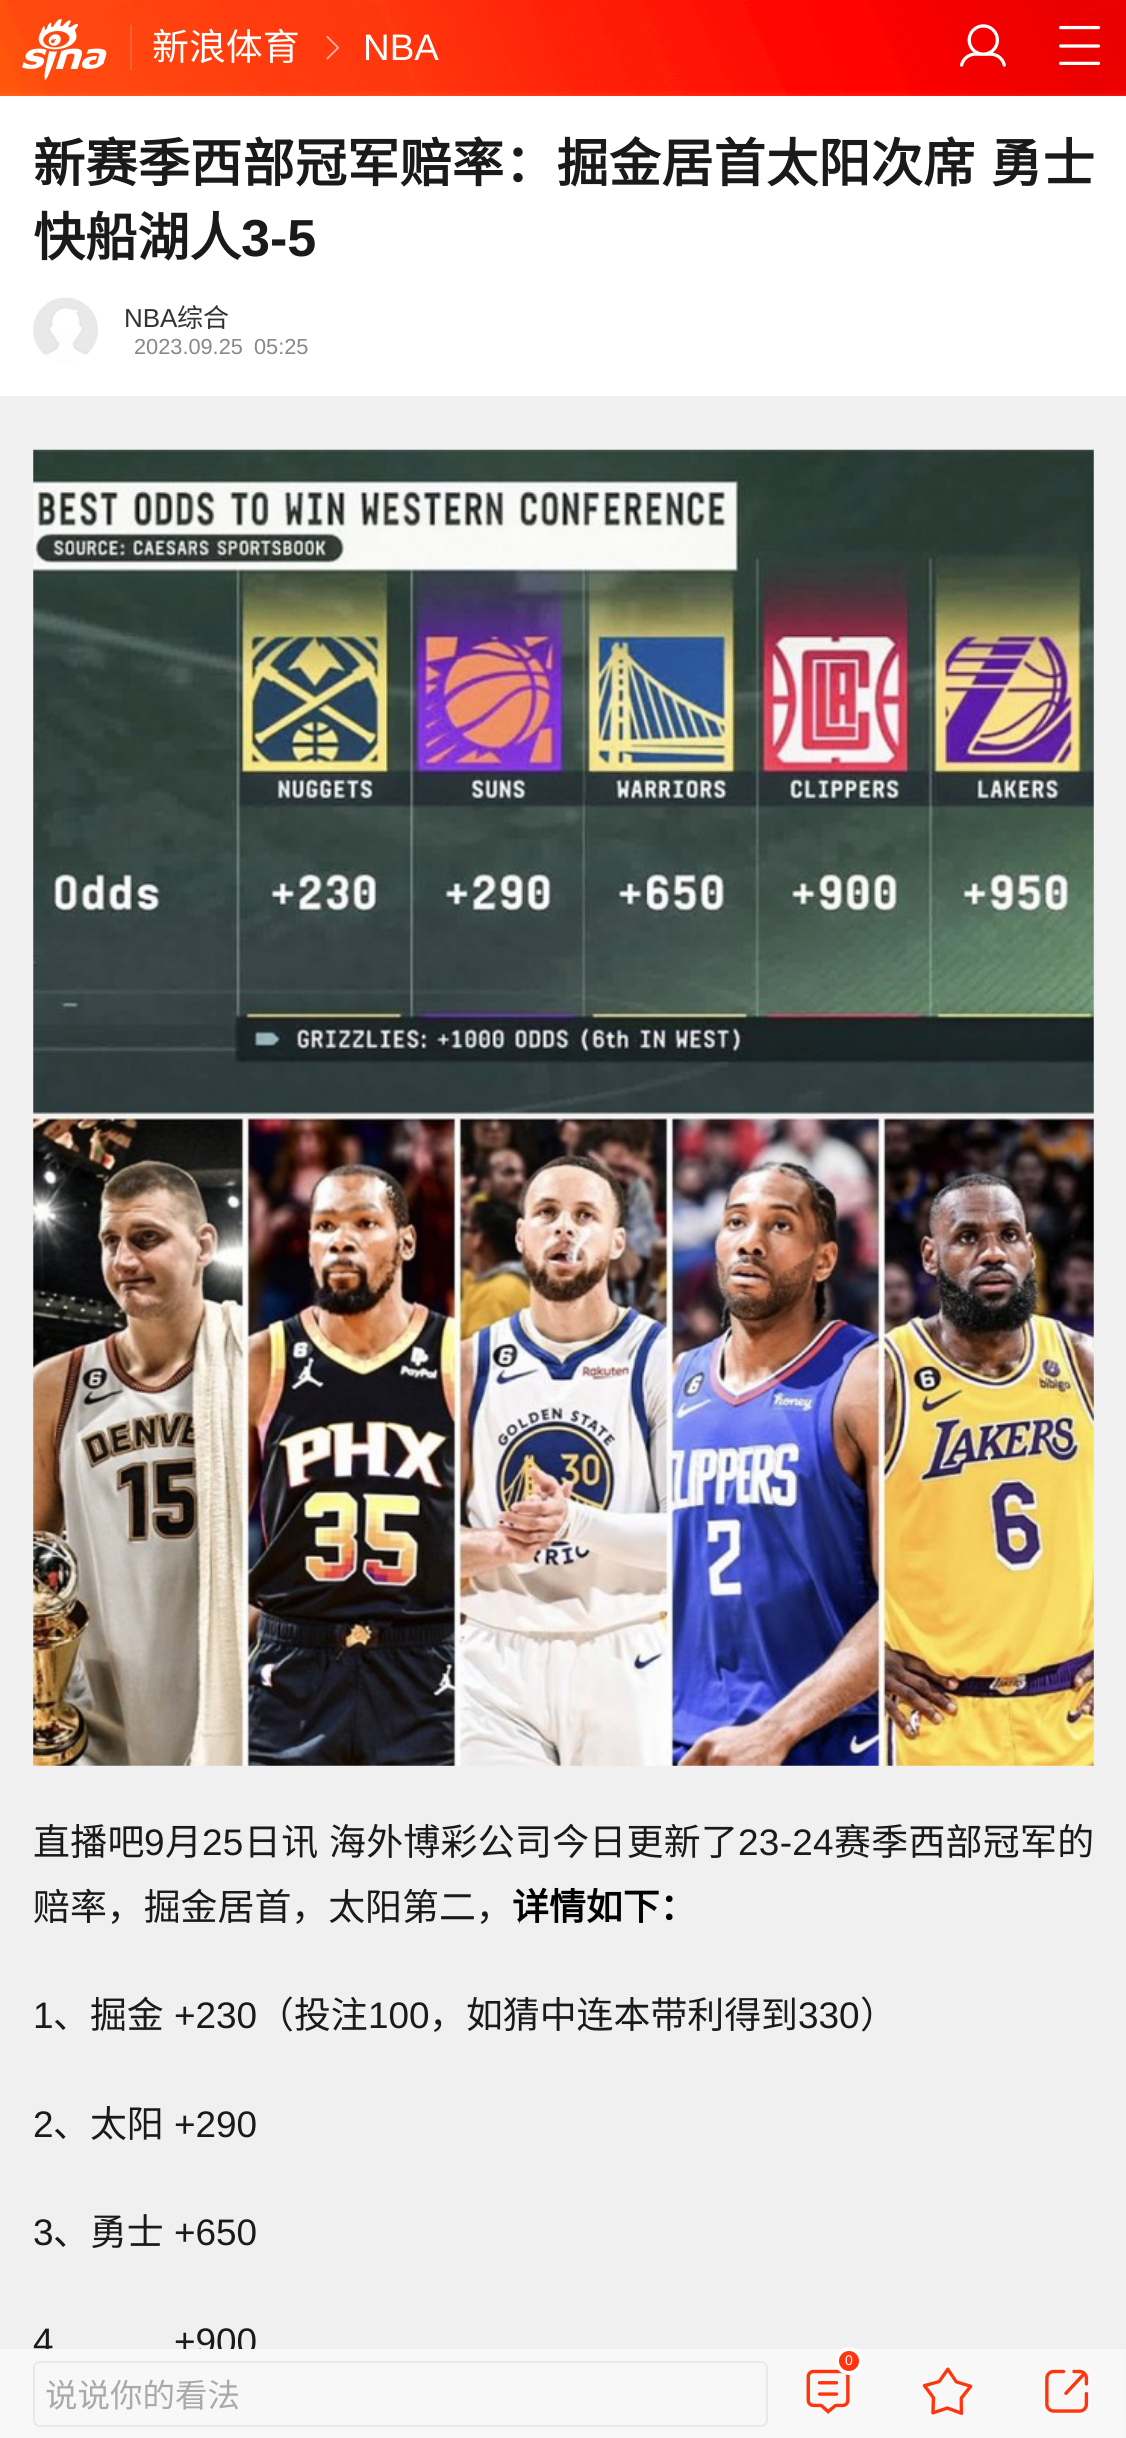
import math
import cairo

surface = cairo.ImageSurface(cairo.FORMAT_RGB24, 1126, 2438)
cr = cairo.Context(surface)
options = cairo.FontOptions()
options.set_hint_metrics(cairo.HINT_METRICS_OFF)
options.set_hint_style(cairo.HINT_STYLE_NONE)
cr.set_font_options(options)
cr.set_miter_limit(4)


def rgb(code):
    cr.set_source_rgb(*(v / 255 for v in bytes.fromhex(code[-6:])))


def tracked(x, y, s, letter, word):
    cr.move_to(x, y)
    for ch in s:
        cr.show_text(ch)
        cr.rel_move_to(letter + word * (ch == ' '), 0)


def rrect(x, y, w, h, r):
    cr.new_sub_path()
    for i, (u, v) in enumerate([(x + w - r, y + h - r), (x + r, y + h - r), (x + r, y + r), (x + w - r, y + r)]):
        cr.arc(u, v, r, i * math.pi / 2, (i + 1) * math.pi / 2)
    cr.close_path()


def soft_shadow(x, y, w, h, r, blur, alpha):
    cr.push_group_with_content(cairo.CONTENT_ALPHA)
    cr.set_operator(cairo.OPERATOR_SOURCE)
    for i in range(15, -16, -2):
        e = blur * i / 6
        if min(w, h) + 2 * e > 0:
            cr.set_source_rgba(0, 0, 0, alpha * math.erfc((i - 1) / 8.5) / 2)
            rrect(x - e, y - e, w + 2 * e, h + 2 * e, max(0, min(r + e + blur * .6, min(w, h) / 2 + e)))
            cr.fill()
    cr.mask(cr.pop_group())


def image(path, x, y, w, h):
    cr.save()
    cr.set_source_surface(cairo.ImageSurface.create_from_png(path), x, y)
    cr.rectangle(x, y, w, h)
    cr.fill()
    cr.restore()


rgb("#ffffff")
cr.paint()
image("img/1.png", 0, 0, 1126, 96)
image("img/2.png", 22, 19, 85, 61)
cr.set_source_rgba(1, 1, 1, 0.15)
cr.rectangle(130, 25, 2, 45)
cr.fill()
image("img/3.png", 326, 36, 13, 24)
image("img/4.png", 960, 24, 46, 43)
image("img/5.png", 1059, 25, 42, 40)
rgb("#f0f0f0")
soft_shadow(0, 102, 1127, 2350, 0, 4.5, 1)
rgb("#f0f0f0")
cr.rectangle(0, 396, 1126, 1953)
cr.fill()
rgb("#ffffff")
cr.rectangle(0, 98, 1126, 298)
cr.fill()
rgb("#f2f2f2")
rrect(33, 298, 65, 64, 32)
cr.fill()
image("img/6.png", 33, 297, 65, 65)
image("img/7.png", 33, 449, 1061, 1317)
cr.select_font_face("Noto Sans CJK SC")
cr.set_font_size(36.9)
rgb("#ffffff")
cr.move_to(152, 60)
cr.show_text("新浪体育")
cr.select_font_face("Liberation Sans")
cr.move_to(363, 60)
cr.show_text("NBA")
cr.select_font_face("Noto Sans CJK SC", cairo.FONT_SLANT_NORMAL, cairo.FONT_WEIGHT_BOLD)
cr.set_font_size(52.1)
rgb("#1a1a1a")
tracked(33, 182, "新赛季西部冠军赔率：掘金居首太阳次席 勇士", 0.25, 3)
cr.move_to(33, 256)
cr.show_text("快船湖人")
cr.select_font_face("Liberation Sans", cairo.FONT_SLANT_NORMAL, cairo.FONT_WEIGHT_BOLD)
cr.move_to(241, 256)
cr.show_text("3-5")
cr.select_font_face("Liberation Sans")
cr.set_font_size(26)
rgb("#333333")
cr.move_to(124, 327)
cr.show_text("NBA")
cr.select_font_face("Noto Sans CJK SC")
cr.move_to(177, 327)
cr.show_text("综合")
cr.select_font_face("Liberation Sans")
cr.set_font_size(21.75)
rgb("#888888")
cr.move_to(134, 354)
cr.show_text("2023.09.25")
cr.move_to(254, 354)
cr.show_text("05:25")
cr.select_font_face("Noto Sans CJK SC")
cr.set_font_size(36.9)
rgb("#1a1a1a")
tracked(33, 1855, "直播吧", 0.3, 0)
cr.select_font_face("Liberation Sans")
tracked(144, 1855, "9", 0.3, 0)
cr.select_font_face("Noto Sans CJK SC")
tracked(165, 1855, "月", 0.3, 0)
cr.select_font_face("Liberation Sans")
tracked(202, 1855, "25", 0.3, 0)
cr.select_font_face("Noto Sans CJK SC")
tracked(244, 1855, "日讯 海外博彩公司今日更新了", 0.3, 2)
cr.select_font_face("Liberation Sans")
tracked(738, 1855, "23-24", 0.3, 0)
cr.select_font_face("Noto Sans CJK SC")
tracked(834, 1855, "赛季西部冠军的", 0.3, 0)
cr.move_to(33, 1920)
cr.show_text("赔率，掘金居首，太阳第二，")
cr.select_font_face("Noto Sans CJK SC", cairo.FONT_SLANT_NORMAL, cairo.FONT_WEIGHT_BOLD)
rgb("#000000")
cr.move_to(512, 1920)
cr.show_text("详情如下：")
cr.select_font_face("Liberation Sans")
rgb("#1a1a1a")
cr.move_to(33, 2028)
cr.show_text("1")
cr.select_font_face("Noto Sans CJK SC")
cr.move_to(53, 2028)
cr.show_text("、掘金")
cr.select_font_face("Liberation Sans")
cr.move_to(174, 2028)
cr.show_text("+230")
cr.select_font_face("Noto Sans CJK SC")
cr.move_to(257, 2028)
cr.show_text("（投注")
cr.select_font_face("Liberation Sans")
cr.move_to(368, 2028)
cr.show_text("100")
cr.select_font_face("Noto Sans CJK SC")
cr.move_to(429, 2028)
cr.show_text("，如猜中连本带利得到")
cr.select_font_face("Liberation Sans")
cr.move_to(798, 2028)
cr.show_text("330")
cr.select_font_face("Noto Sans CJK SC")
cr.move_to(860, 2028)
cr.show_text("）")
cr.select_font_face("Liberation Sans")
cr.move_to(33, 2137)
cr.show_text("2")
cr.select_font_face("Noto Sans CJK SC")
cr.move_to(53, 2137)
cr.show_text("、太阳")
cr.select_font_face("Liberation Sans")
cr.move_to(174, 2137)
cr.show_text("+290")
cr.move_to(33, 2245)
cr.show_text("3")
cr.select_font_face("Noto Sans CJK SC")
cr.move_to(53, 2245)
cr.show_text("、勇士")
cr.select_font_face("Liberation Sans")
for x, y, s in [
    (174, 2245, "+650"),
    (33, 2354, "4"),
    (174, 2354, "+900"),
]:
    cr.move_to(x, y)
    cr.show_text(s)
rgb("#f8f8f8")
cr.rectangle(2, 2349, 1123, 89)
cr.fill()
image("img/8.png", 806, 2369, 44, 45)
rgb("#fe350e")
cr.arc(849, 2361, 12, 0, 2 * math.pi)
cr.fill_preserve()
rgb("#ffffff")
cr.set_line_width(4)
cr.stroke()
cr.set_font_size(14)
cr.move_to(845, 2365)
cr.show_text("0")
image("img/9.png", 922, 2367, 51, 48)
image("img/10.png", 1045, 2369, 44, 44)
rrect(34, 2362, 733, 64, 6)
rgb("#e9e9e9")
cr.set_line_width(2)
cr.stroke()
cr.select_font_face("Noto Sans CJK SC")
cr.set_font_size(32.5)
rgb("#aaaaaa")
cr.move_to(45, 2407)
cr.show_text("说说你的看法")
surface.write_to_png("page.png")
